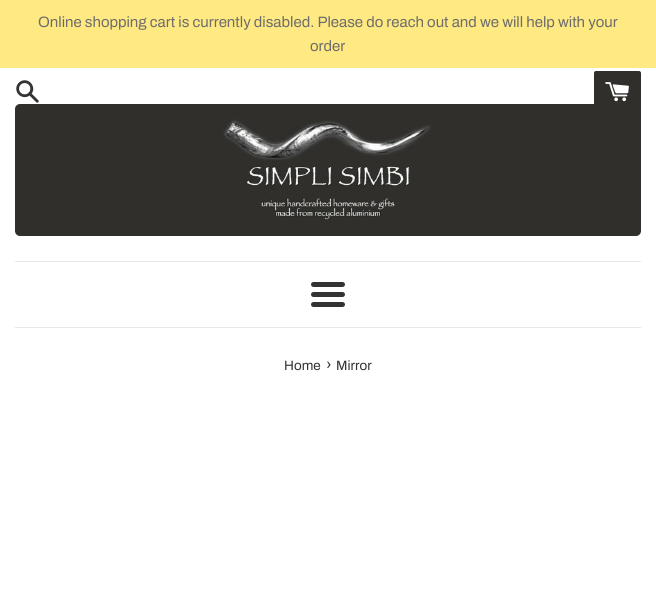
import math
import cairo

surface = cairo.ImageSurface(cairo.FORMAT_RGB24, 656, 593)
cr = cairo.Context(surface)
options = cairo.FontOptions()
options.set_hint_metrics(cairo.HINT_METRICS_OFF)
options.set_hint_style(cairo.HINT_STYLE_NONE)
cr.set_font_options(options)
cr.set_miter_limit(4)


def rgb(code):
    cr.set_source_rgb(*(v / 255 for v in bytes.fromhex(code[-6:])))


def rrect(x, y, w, h, r):
    cr.new_sub_path()
    for i, (u, v) in enumerate([(x + w - r, y + h - r), (x + r, y + h - r), (x + r, y + r), (x + w - r, y + r)]):
        cr.arc(u, v, r, i * math.pi / 2, (i + 1) * math.pi / 2)
    cr.close_path()


def image(path, x, y, w, h):
    cr.save()
    cr.set_source_surface(cairo.ImageSurface.create_from_png(path), x, y)
    cr.rectangle(x, y, w, h)
    cr.fill()
    cr.restore()


rgb("#ffffff")
cr.paint()
rgb("#ffe982")
cr.rectangle(0, 0, 656, 68)
cr.fill()
image("img/1.png", 16, 80, 23, 23)
rgb("#302f2b")
rrect(15, 104, 626, 132, 5)
cr.fill()
rrect(594, 71, 47, 38, 2)
cr.fill()
image("img/2.png", 605, 82, 24, 20)
image("img/3.png", 223, 119, 208, 101)
rgb("#e8e8e8")
cr.rectangle(15, 261, 626, 1)
cr.fill()
rgb("#333333")
rrect(311, 282, 34, 5, 2.5)
cr.fill()
rrect(311, 292, 34, 5, 2.5)
cr.fill()
rrect(311, 302, 34, 5, 2.5)
cr.fill()
rgb("#e8e8e8")
cr.rectangle(15, 327, 626, 1)
cr.fill()
rgb("#fafafa")
cr.rectangle(514, 553, 1, 1)
cr.fill()
cr.select_font_face("Archivo")
cr.set_font_size(15)
rgb("#6e6d6b")
cr.move_to(38, 27)
cr.show_text("Online shopping cart is currently disabled. Please do reach out and we will help with your")
cr.move_to(310, 51)
cr.show_text("order")
cr.set_font_size(13.5)
rgb("#333333")
cr.move_to(284, 370)
cr.show_text("Home")
cr.set_font_size(16)
cr.move_to(326, 370)
cr.show_text("›")
cr.set_font_size(13.5)
cr.move_to(336, 370)
cr.show_text("Mirror")
surface.write_to_png("page.png")
